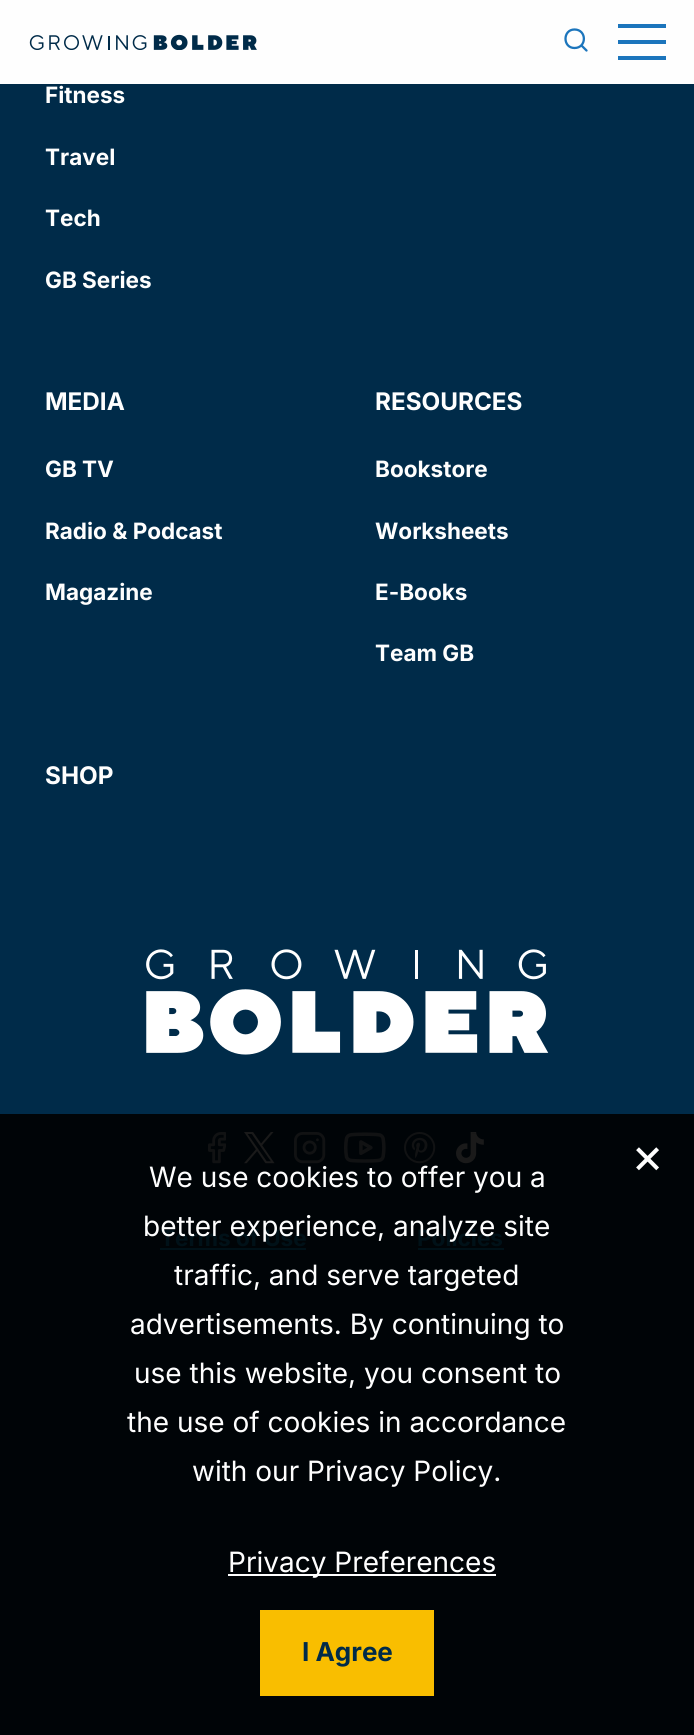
import math
import cairo

surface = cairo.ImageSurface(cairo.FORMAT_RGB24, 694, 1735)
cr = cairo.Context(surface)
options = cairo.FontOptions()
options.set_hint_metrics(cairo.HINT_METRICS_OFF)
options.set_hint_style(cairo.HINT_STYLE_NONE)
cr.set_font_options(options)
cr.set_miter_limit(4)


def rgb(code):
    cr.set_source_rgb(*(v / 255 for v in bytes.fromhex(code[-6:])))


def image(path, x, y, w, h):
    cr.save()
    cr.set_source_surface(cairo.ImageSurface.create_from_png(path), x, y)
    cr.rectangle(x, y, w, h)
    cr.fill()
    cr.restore()


rgb("#002b49")
cr.paint()
rgb("#fefefe")
cr.rectangle(0, 0, 694, 84)
cr.fill()
image("img/1.png", 29, 34, 228, 16)
cr.new_path()
cr.move_to(574.5, 48)
cr.curve_to(587, 48, 587, 29.5, 574.5, 29.5)
cr.curve_to(562.5, 29.5, 562.5, 48, 574.5, 48)
cr.close_path()
cr.move_to(586.5, 50.5)
cr.line_to(581.5, 45.5)
rgb("#1c75bc")
cr.set_line_width(2.3)
cr.set_line_cap(cairo.LINE_CAP_ROUND)
cr.set_line_join(cairo.LINE_JOIN_ROUND)
cr.stroke()
for x, y, w, h, color in [
    (618, 56, 48, 4, "#1c75bc"),
    (618, 40, 48, 4, "#1c75bc"),
    (618, 24, 48, 4, "#1c75bc"),
    (0, 1114, 694, 621, "#000407"),
]:
    rgb(color)
    cr.rectangle(x, y, w, h)
    cr.fill()
image("img/2.png", 146, 949, 403, 106)
image("img/3.png", 208, 1132, 18, 32)
image("img/4.png", 244, 1132, 31, 32)
image("img/5.png", 294, 1132, 32, 32)
image("img/6.png", 344, 1132, 42, 31)
image("img/7.png", 404, 1132, 32, 32)
image("img/8.png", 456, 1132, 28, 32)
for x, y, w, h, color in [
    (160, 1248, 146, 2, "#001118"),
    (418, 1248, 86, 2, "#001118"),
    (228, 1574, 268, 2, "#ffffff"),
    (260, 1610, 174, 86, "#f9be00"),
]:
    rgb(color)
    cr.rectangle(x, y, w, h)
    cr.fill()
cr.select_font_face("Inter", cairo.FONT_SLANT_NORMAL, cairo.FONT_WEIGHT_BOLD)
cr.set_font_size(22.5)
rgb("#fefefe")
for x, y, s in [
    (45, 103, "Fitness"),
    (45, 165, "Travel"),
    (45, 226, "Tech"),
    (45, 288, "GB Series"),
]:
    cr.move_to(x, y)
    cr.show_text(s)
cr.set_font_size(24.25)
cr.move_to(45, 410)
cr.show_text("MEDIA")
cr.set_font_size(22.5)
for x, y, s in [
    (45, 477, "GB TV"),
    (45, 539, "Radio & Podcast"),
    (45, 600, "Magazine"),
]:
    cr.move_to(x, y)
    cr.show_text(s)
cr.set_font_size(24.25)
cr.move_to(375, 410)
cr.show_text("RESOURCES")
cr.set_font_size(22.5)
for x, y, s in [
    (375, 477, "Bookstore"),
    (375, 539, "Worksheets"),
    (375, 600, "E-Books"),
    (375, 661, "Team GB"),
]:
    cr.move_to(x, y)
    cr.show_text(s)
cr.set_font_size(24.25)
cr.move_to(45, 784)
cr.show_text("SHOP")
cr.set_font_size(22.5)
rgb("#001118")
cr.move_to(160, 1246)
cr.show_text("Terms of Use")
cr.move_to(417, 1246)
cr.show_text("Policies")
cr.select_font_face("Inter")
cr.set_font_size(50)
rgb("#fefefe")
cr.move_to(631, 1173)
cr.show_text("×")
cr.set_font_size(28)
cr.move_to(228, 1572)
cr.show_text("Privacy Preferences")
cr.select_font_face("Inter", cairo.FONT_SLANT_NORMAL, cairo.FONT_WEIGHT_BOLD)
cr.set_font_size(26)
rgb("#002b49")
cr.move_to(302, 1661)
cr.show_text("I Agree")
cr.select_font_face("Inter")
cr.set_font_size(28)
rgb("#fefefe")
for x, y, s in [
    (149, 1187, "We use cookies to offer you a"),
    (143, 1236, "better experience, analyze site"),
    (174, 1285, "traffic, and serve targeted"),
    (130, 1334, "advertisements. By continuing to"),
    (134, 1383, "use this website, you consent to"),
    (127, 1432, "the use of cookies in accordance"),
    (192, 1481, "with our Privacy Policy."),
]:
    cr.move_to(x, y)
    cr.show_text(s)
surface.write_to_png("page.png")
